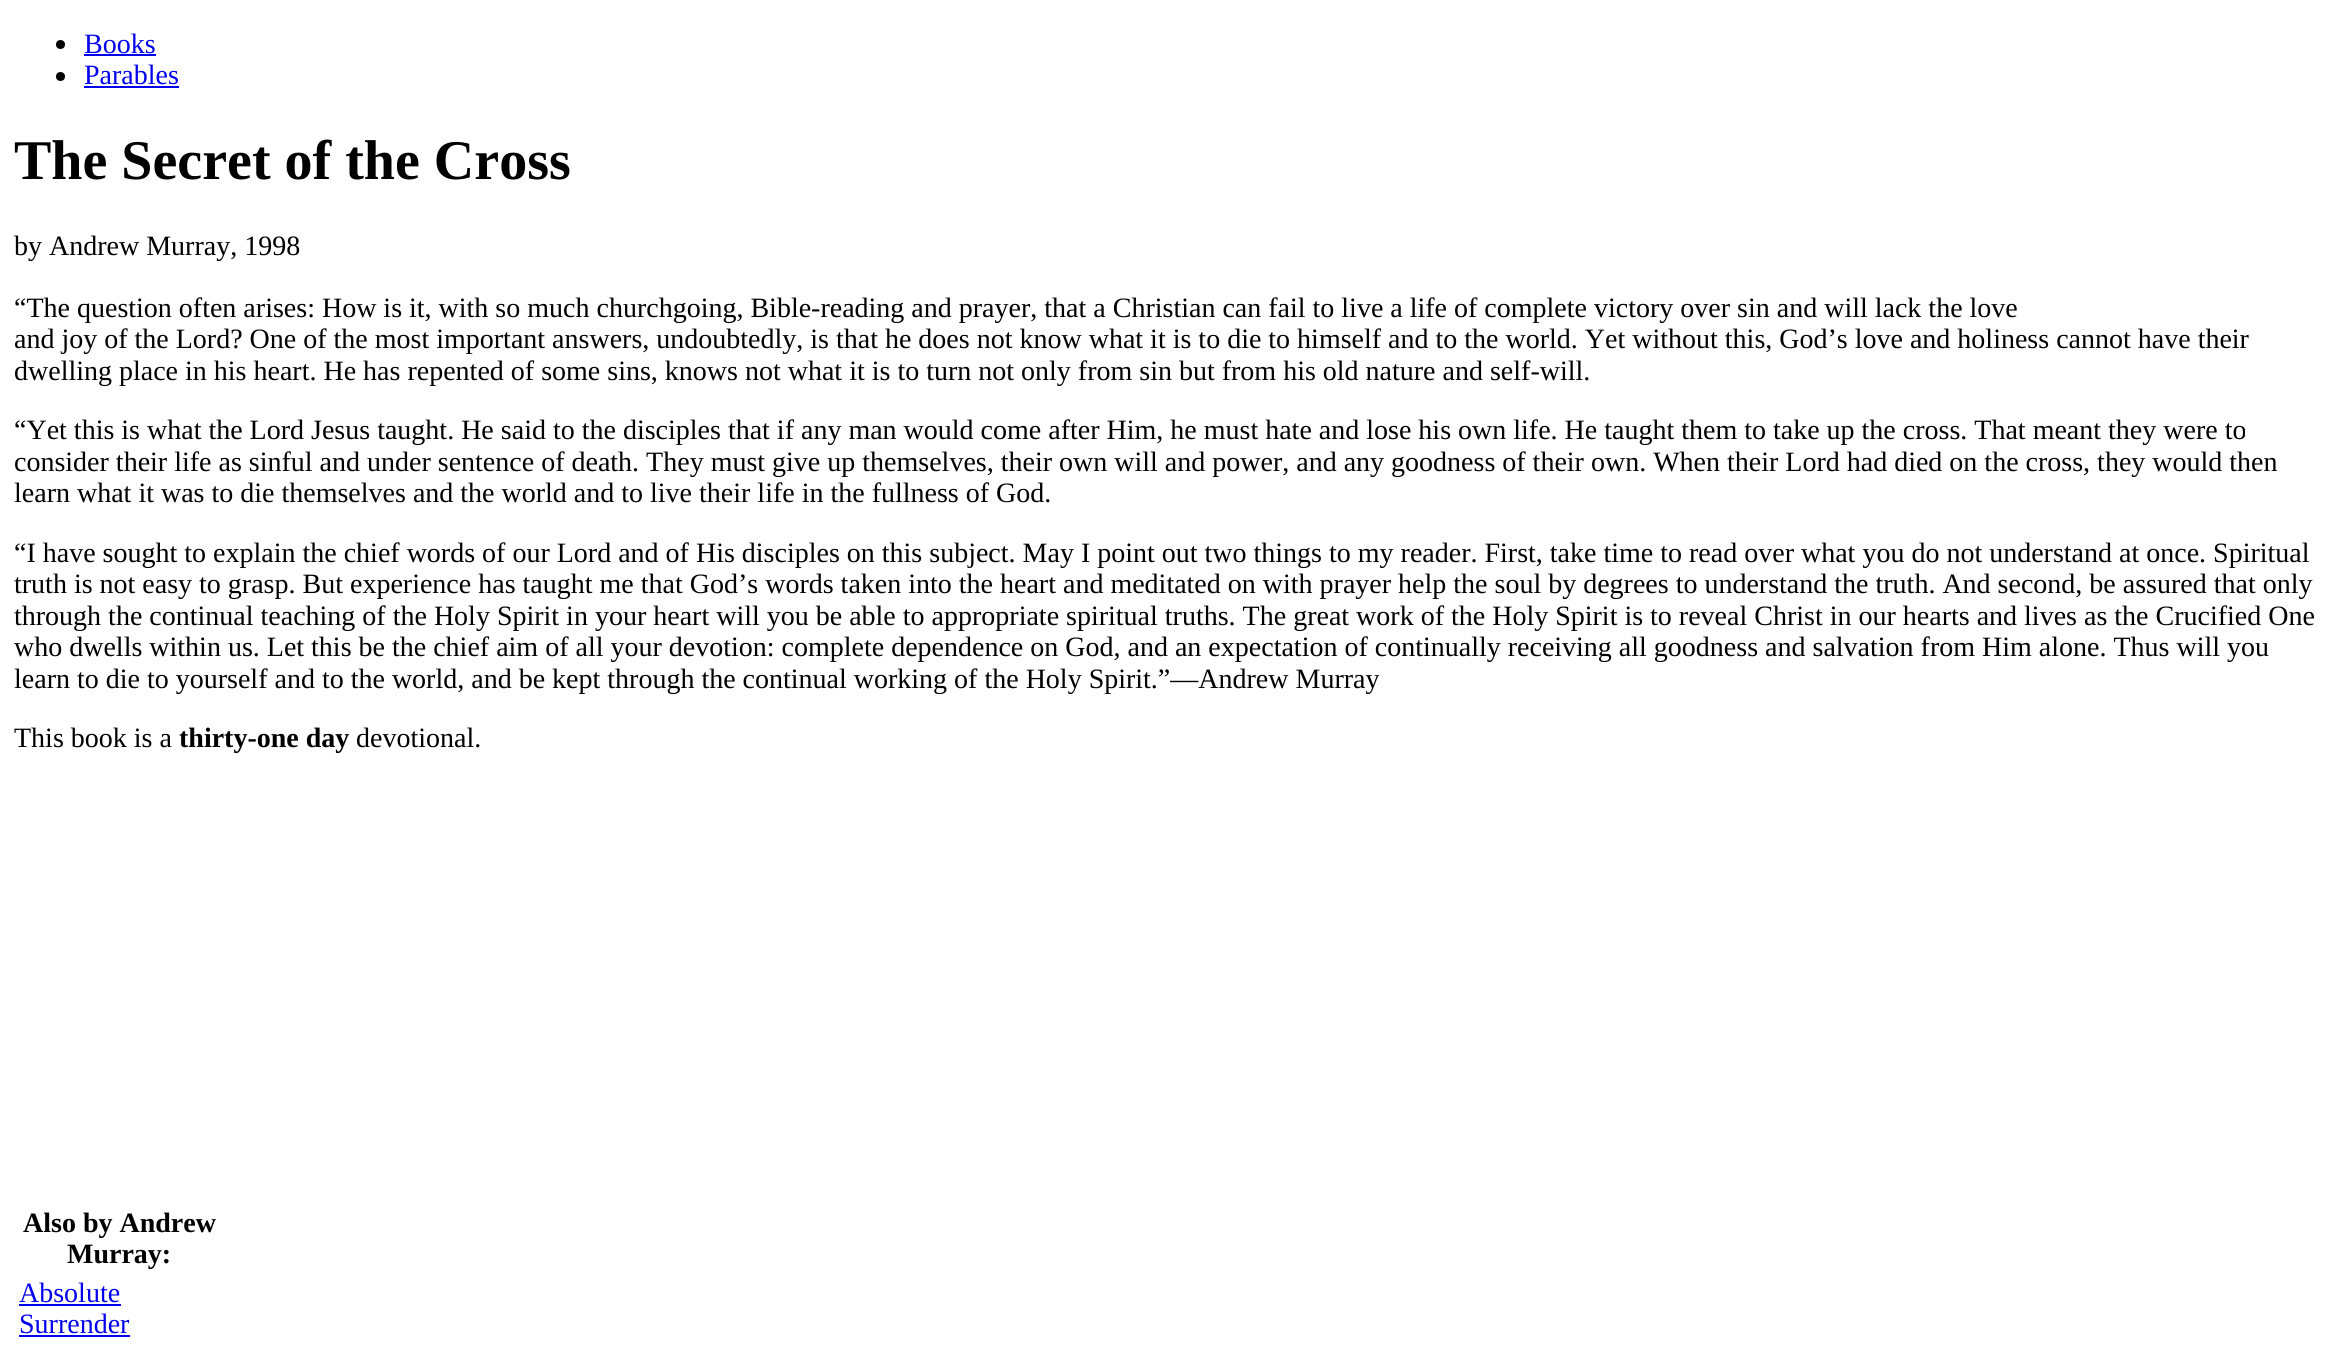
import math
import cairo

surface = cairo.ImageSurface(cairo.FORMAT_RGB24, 2329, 1353)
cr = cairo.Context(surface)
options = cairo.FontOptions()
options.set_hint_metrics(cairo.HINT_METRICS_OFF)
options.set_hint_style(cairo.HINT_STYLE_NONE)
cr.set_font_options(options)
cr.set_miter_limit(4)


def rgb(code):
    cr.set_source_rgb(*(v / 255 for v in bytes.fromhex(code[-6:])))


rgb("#ffffff")
cr.paint()
rgb("#000000")
cr.arc(60.5, 44.5, 4.5, 0, 2 * math.pi)
cr.fill()
rgb("#0000ee")
cr.rectangle(84, 54, 72, 2)
cr.fill()
rgb("#000000")
cr.arc(60.5, 76.5, 4.5, 0, 2 * math.pi)
cr.fill()
for x, y, w, h, color in [
    (84, 86, 95, 2, "#0000ee"),
    (19, 1304, 102, 2, "#0000ee"),
    (19, 1335, 111, 2, "#0000ee"),
]:
    rgb(color)
    cr.rectangle(x, y, w, h)
    cr.fill()
cr.select_font_face("Liberation Serif")
cr.set_font_size(28)
cr.move_to(84, 53)
cr.show_text("Books")
cr.move_to(84, 84)
cr.show_text("Parables")
cr.select_font_face("Liberation Serif", cairo.FONT_SLANT_NORMAL, cairo.FONT_WEIGHT_BOLD)
cr.set_font_size(56)
rgb("#000000")
cr.move_to(14, 179)
cr.show_text("The Secret of the Cross")
cr.select_font_face("Liberation Serif")
cr.set_font_size(28)
for x, y, s in [
    (14, 255, "by Andrew Murray, 1998"),
    (14, 317, "“The question often arises: How is it, with so much churchgoing, Bible-reading and prayer, that a Christian can fail to live a life of complete victory over sin and will lack the love"),
    (14, 348, "and joy of the Lord? One of the most important answers, undoubtedly, is that he does not know what it is to die to himself and to the world. Yet without this, God’s love and holiness cannot have their"),
    (14, 380, "dwelling place in his heart. He has repented of some sins, knows not what it is to turn not only from sin but from his old nature and self-will."),
    (14, 439, "“Yet this is what the Lord Jesus taught. He said to the disciples that if any man would come after Him, he must hate and lose his own life. He taught them to take up the cross. That meant they were to"),
    (14, 471, "consider their life as sinful and under sentence of death. They must give up themselves, their own will and power, and any goodness of their own. When their Lord had died on the cross, they would then"),
    (14, 502, "learn what it was to die themselves and the world and to live their life in the fullness of God."),
    (14, 562, "“I have sought to explain the chief words of our Lord and of His disciples on this subject. May I point out two things to my reader. First, take time to read over what you do not understand at once. Spiritual"),
    (14, 593, "truth is not easy to grasp. But experience has taught me that God’s words taken into the heart and meditated on with prayer help the soul by degrees to understand the truth. And second, be assured that only"),
    (14, 625, "through the continual teaching of the Holy Spirit in your heart will you be able to appropriate spiritual truths. The great work of the Holy Spirit is to reveal Christ in our hearts and lives as the Crucified One"),
    (14, 656, "who dwells within us. Let this be the chief aim of all your devotion: complete dependence on God, and an expectation of continually receiving all goodness and salvation from Him alone. Thus will you"),
    (14, 688, "learn to die to yourself and to the world, and be kept through the continual working of the Holy Spirit.”—Andrew Murray"),
    (14, 747, "This book is a"),
]:
    cr.move_to(x, y)
    cr.show_text(s)
cr.select_font_face("Liberation Serif", cairo.FONT_SLANT_NORMAL, cairo.FONT_WEIGHT_BOLD)
cr.move_to(179, 747)
cr.show_text("thirty-one day")
cr.select_font_face("Liberation Serif")
cr.move_to(356, 747)
cr.show_text("devotional.")
cr.select_font_face("Liberation Serif", cairo.FONT_SLANT_NORMAL, cairo.FONT_WEIGHT_BOLD)
cr.move_to(23, 1232)
cr.show_text("Also by Andrew")
cr.move_to(67, 1263)
cr.show_text("Murray:")
cr.select_font_face("Liberation Serif")
rgb("#0000ee")
cr.move_to(19, 1302)
cr.show_text("Absolute")
cr.move_to(19, 1333)
cr.show_text("Surrender")
surface.write_to_png("page.png")
